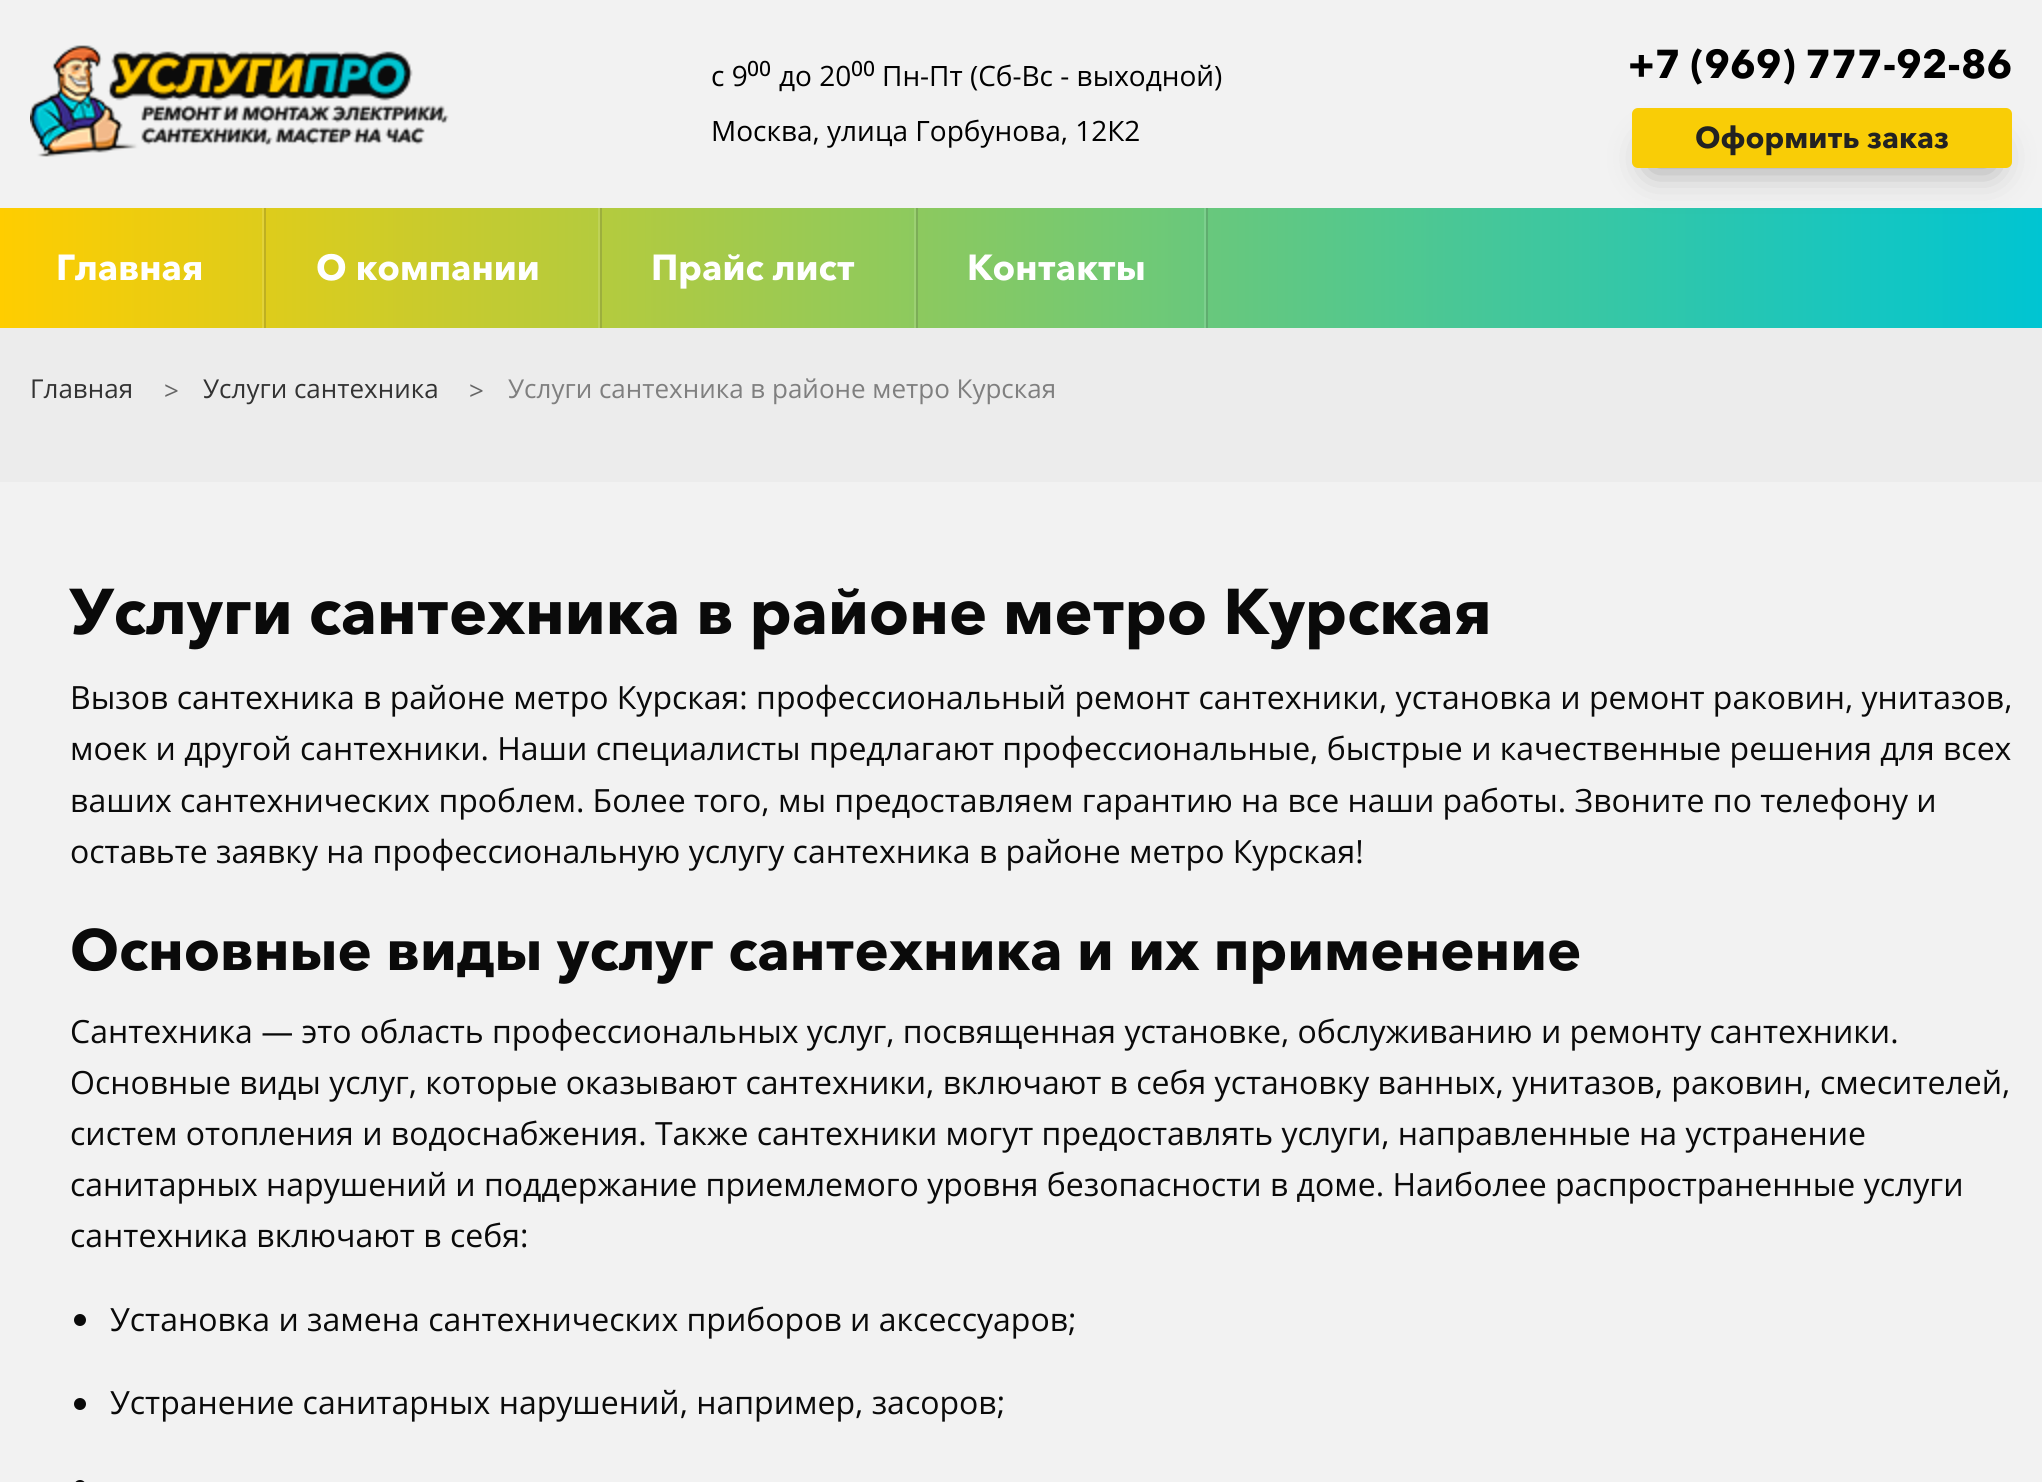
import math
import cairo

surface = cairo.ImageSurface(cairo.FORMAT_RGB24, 2042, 1482)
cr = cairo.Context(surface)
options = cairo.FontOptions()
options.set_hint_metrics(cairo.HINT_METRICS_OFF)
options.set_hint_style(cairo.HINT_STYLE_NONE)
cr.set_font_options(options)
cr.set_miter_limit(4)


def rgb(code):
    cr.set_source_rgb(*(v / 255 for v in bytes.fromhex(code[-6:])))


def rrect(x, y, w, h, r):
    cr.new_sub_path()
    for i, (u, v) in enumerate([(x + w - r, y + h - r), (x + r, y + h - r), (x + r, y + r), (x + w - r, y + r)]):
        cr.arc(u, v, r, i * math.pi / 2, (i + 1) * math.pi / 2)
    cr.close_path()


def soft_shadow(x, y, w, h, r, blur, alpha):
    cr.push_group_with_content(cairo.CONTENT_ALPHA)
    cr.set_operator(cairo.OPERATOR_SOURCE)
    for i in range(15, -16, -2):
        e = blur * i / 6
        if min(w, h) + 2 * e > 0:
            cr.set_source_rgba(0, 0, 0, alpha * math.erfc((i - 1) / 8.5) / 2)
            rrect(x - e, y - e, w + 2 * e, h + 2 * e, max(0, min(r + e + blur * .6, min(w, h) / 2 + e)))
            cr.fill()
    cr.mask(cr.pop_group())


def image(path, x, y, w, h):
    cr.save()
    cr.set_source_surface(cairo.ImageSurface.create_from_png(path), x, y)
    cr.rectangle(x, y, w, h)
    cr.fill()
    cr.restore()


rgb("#f2f2f2")
cr.paint()
image("img/1.png", 30, 45, 419, 112)
gradient = cairo.LinearGradient(2042, 268, 0, 268)
gradient.add_color_stop_rgba(0, 0, 0.773, 0.824, 1)
gradient.add_color_stop_rgba(1, 1, 0.804, 0, 1)
cr.set_source(gradient)
cr.rectangle(0, 208, 2042, 120)
cr.fill()
rgb("#000000")
soft_shadow(1654, 150, 336, 16, 0, 19, 0.41)
rgb("#f9cd06")
rrect(1632, 108, 380, 60, 6)
cr.fill()
for x, y, w, h, color in [
    (264, 208, 2, 120, "#beb021"),
    (262, 208, 2, 120, "#e2d339"),
    (600, 208, 2, 120, "#9caf3d"),
    (598, 208, 2, 120, "#bed257"),
    (916, 208, 2, 120, "#7cad57"),
    (914, 208, 2, 120, "#9cd073"),
    (1206, 208, 2, 120, "#5fad6f"),
    (1204, 208, 2, 120, "#7ccf8d"),
    (0, 328, 2042, 154, "#ececec"),
]:
    rgb(color)
    cr.rectangle(x, y, w, h)
    cr.fill()
rgb("#0a0a0a")
cr.arc(80, 1320, 6, 0, 2 * math.pi)
cr.fill()
cr.arc(80, 1404, 6, 0, 2 * math.pi)
cr.fill()
rrect(74, 1480, 12, 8, 6)
cr.fill()
cr.select_font_face("Open Sans")
cr.set_font_size(28)
rgb("#000000")
cr.move_to(711, 86)
cr.show_text("с 9")
cr.select_font_face("Open Sans Medium")
cr.set_font_size(21)
cr.move_to(747, 76)
cr.show_text("00")
cr.select_font_face("Open Sans")
cr.set_font_size(28)
cr.move_to(779, 86)
cr.show_text("до 20")
cr.select_font_face("Open Sans Medium")
cr.set_font_size(21)
cr.move_to(851, 76)
cr.show_text("00")
cr.select_font_face("Open Sans")
cr.set_font_size(28)
cr.move_to(882, 86)
cr.show_text("Пн-Пт (Сб-Вс - выходной)")
cr.move_to(711, 141)
cr.show_text("Москва, улица Горбунова, 12К2")
cr.select_font_face("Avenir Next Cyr", cairo.FONT_SLANT_NORMAL, cairo.FONT_WEIGHT_BOLD)
cr.set_font_size(40)
cr.move_to(1628, 78)
cr.show_text("+7 (969) 777-92-86")
cr.set_font_size(30)
rgb("#222222")
cr.move_to(1695, 148)
cr.show_text("Оформить заказ")
cr.set_font_size(36)
rgb("#ffffff")
for x, y, s in [
    (56, 280, "Главная"),
    (316, 280, "О компании"),
    (651, 280, "Прайс лист"),
    (967, 280, "Контакты"),
]:
    cr.move_to(x, y)
    cr.show_text(s)
cr.select_font_face("Open Sans")
cr.set_font_size(26)
rgb("#333333")
cr.move_to(30, 398)
cr.show_text("Главная")
rgb("#666666")
cr.move_to(164, 400)
cr.show_text(">")
rgb("#333333")
cr.move_to(203, 398)
cr.show_text("Услуги сантехника")
rgb("#666666")
cr.move_to(469, 400)
cr.show_text(">")
rgb("#7f7f7f")
cr.move_to(508, 398)
cr.show_text("Услуги сантехника в районе метро Курская")
cr.select_font_face("Avenir Next Cyr", cairo.FONT_SLANT_NORMAL, cairo.FONT_WEIGHT_BOLD)
cr.set_font_size(64)
rgb("#0a0a0a")
cr.move_to(70, 634)
cr.show_text("Услуги сантехника в районе метро Курская")
cr.select_font_face("Open Sans")
cr.set_font_size(32)
for x, y, s in [
    (70, 709, "Вызов сантехника в районе метро Курская: профессиональный ремонт сантехники, установка и ремонт раковин, унитазов,"),
    (70, 760, "моек и другой сантехники. Наши специалисты предлагают профессиональные, быстрые и качественные решения для всех"),
    (70, 812, "ваших сантехнических проблем. Более того, мы предоставляем гарантию на все наши работы. Звоните по телефону и"),
    (70, 863, "оставьте заявку на профессиональную услугу сантехника в районе метро Курская!"),
]:
    cr.move_to(x, y)
    cr.show_text(s)
cr.select_font_face("Avenir Next Cyr", cairo.FONT_SLANT_NORMAL, cairo.FONT_WEIGHT_BOLD)
cr.set_font_size(57.6)
cr.move_to(70, 970)
cr.show_text("Основные виды услуг сантехника и их применение")
cr.select_font_face("Open Sans")
cr.set_font_size(32)
for x, y, s in [
    (70, 1043, "Сантехника — это область профессиональных услуг, посвященная установке, обслуживанию и ремонту сантехники."),
    (70, 1094, "Основные виды услуг, которые оказывают сантехники, включают в себя установку ванных, унитазов, раковин, смесителей,"),
    (70, 1145, "систем отопления и водоснабжения. Также сантехники могут предоставлять услуги, направленные на устранение"),
    (70, 1196, "санитарных нарушений и поддержание приемлемого уровня безопасности в доме. Наиболее распространенные услуги"),
    (70, 1247, "сантехника включают в себя:"),
    (110, 1331, "Установка и замена сантехнических приборов и аксессуаров;"),
    (110, 1414, "Устранение санитарных нарушений, например, засоров;"),
]:
    cr.move_to(x, y)
    cr.show_text(s)
surface.write_to_png("page.png")
